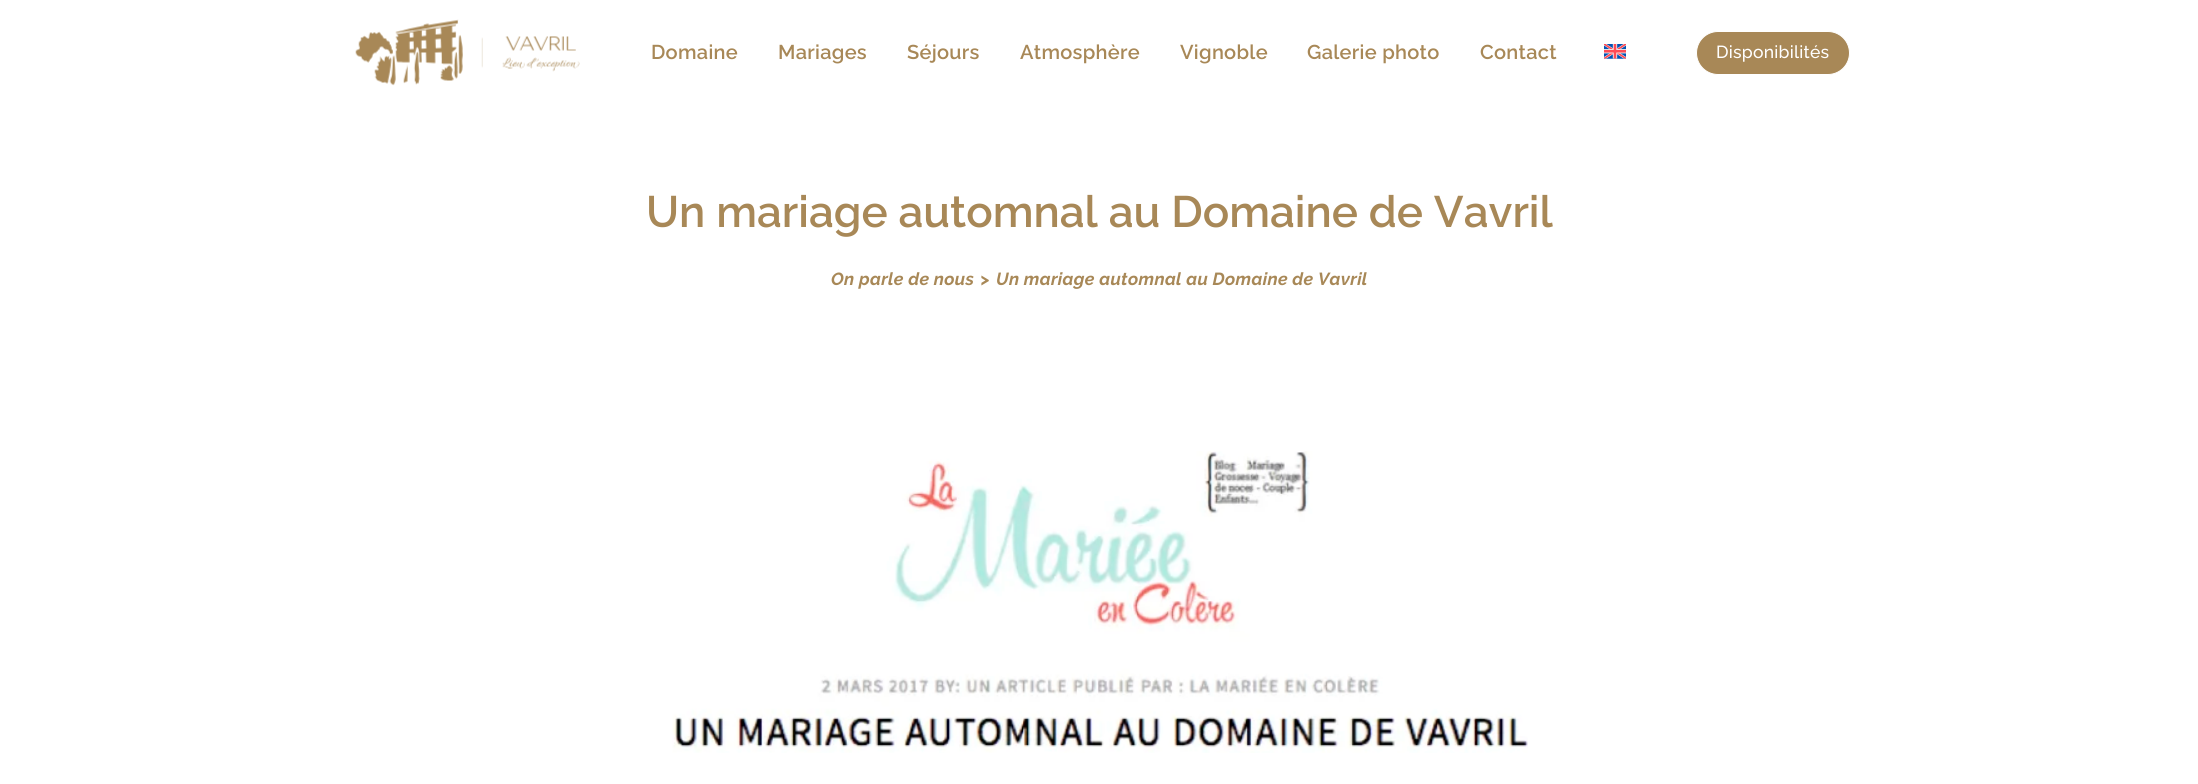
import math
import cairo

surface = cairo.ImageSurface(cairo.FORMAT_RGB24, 2198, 784)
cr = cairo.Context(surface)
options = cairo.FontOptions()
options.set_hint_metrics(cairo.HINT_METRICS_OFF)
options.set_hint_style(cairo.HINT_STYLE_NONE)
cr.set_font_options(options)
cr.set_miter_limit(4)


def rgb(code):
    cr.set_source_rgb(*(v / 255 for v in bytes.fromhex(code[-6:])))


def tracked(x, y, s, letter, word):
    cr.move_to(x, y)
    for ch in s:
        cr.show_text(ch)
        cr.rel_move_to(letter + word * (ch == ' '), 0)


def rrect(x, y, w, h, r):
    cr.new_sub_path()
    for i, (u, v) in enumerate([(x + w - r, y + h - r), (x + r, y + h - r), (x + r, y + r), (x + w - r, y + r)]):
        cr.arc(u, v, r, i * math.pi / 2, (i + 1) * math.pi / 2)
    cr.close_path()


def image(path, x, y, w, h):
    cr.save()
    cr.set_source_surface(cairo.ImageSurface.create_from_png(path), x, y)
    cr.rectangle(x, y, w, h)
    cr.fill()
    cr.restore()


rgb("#ffffff")
cr.paint()
image("img/1.png", 355, 19, 225, 67)
image("img/2.png", 1604, 44, 22, 15)
rgb("#a88857")
rrect(1696.5, 31.5, 153, 43, 21.5)
cr.fill_preserve()
rgb("#ffffff")
cr.set_line_width(1)
cr.stroke()
image("img/3.png", 672, 451, 856, 302)
cr.select_font_face("Raleway SemiBold")
cr.set_font_size(20)
rgb("#a88857")
for x, y, s in [
    (651, 59, "Domaine"),
    (778, 59, "Mariages"),
    (907, 59, "Séjours"),
    (1020, 59, "Atmosphère"),
    (1180, 59, "Vignoble"),
    (1307, 59, "Galerie photo"),
    (1480, 59, "Contact"),
]:
    tracked(x, y, s, 0.3, 0)
cr.select_font_face("Raleway Medium")
cr.set_font_size(17.5)
rgb("#ffffff")
tracked(1716, 58, "Disponibilités", 0.25, 0)
cr.select_font_face("Raleway SemiBold")
cr.set_font_size(44)
rgb("#a88857")
cr.move_to(646, 227)
cr.show_text("Un mariage automnal au Domaine de Vavril")
cr.select_font_face("Raleway", cairo.FONT_SLANT_ITALIC, cairo.FONT_WEIGHT_BOLD)
cr.set_font_size(17.5)
for x, y, s in [
    (831, 285, "On parle de nous"),
    (980, 285, ">"),
    (996, 285, "Un mariage automnal au Domaine de Vavril"),
]:
    tracked(x, y, s, 0.3, 0)
surface.write_to_png("page.png")
